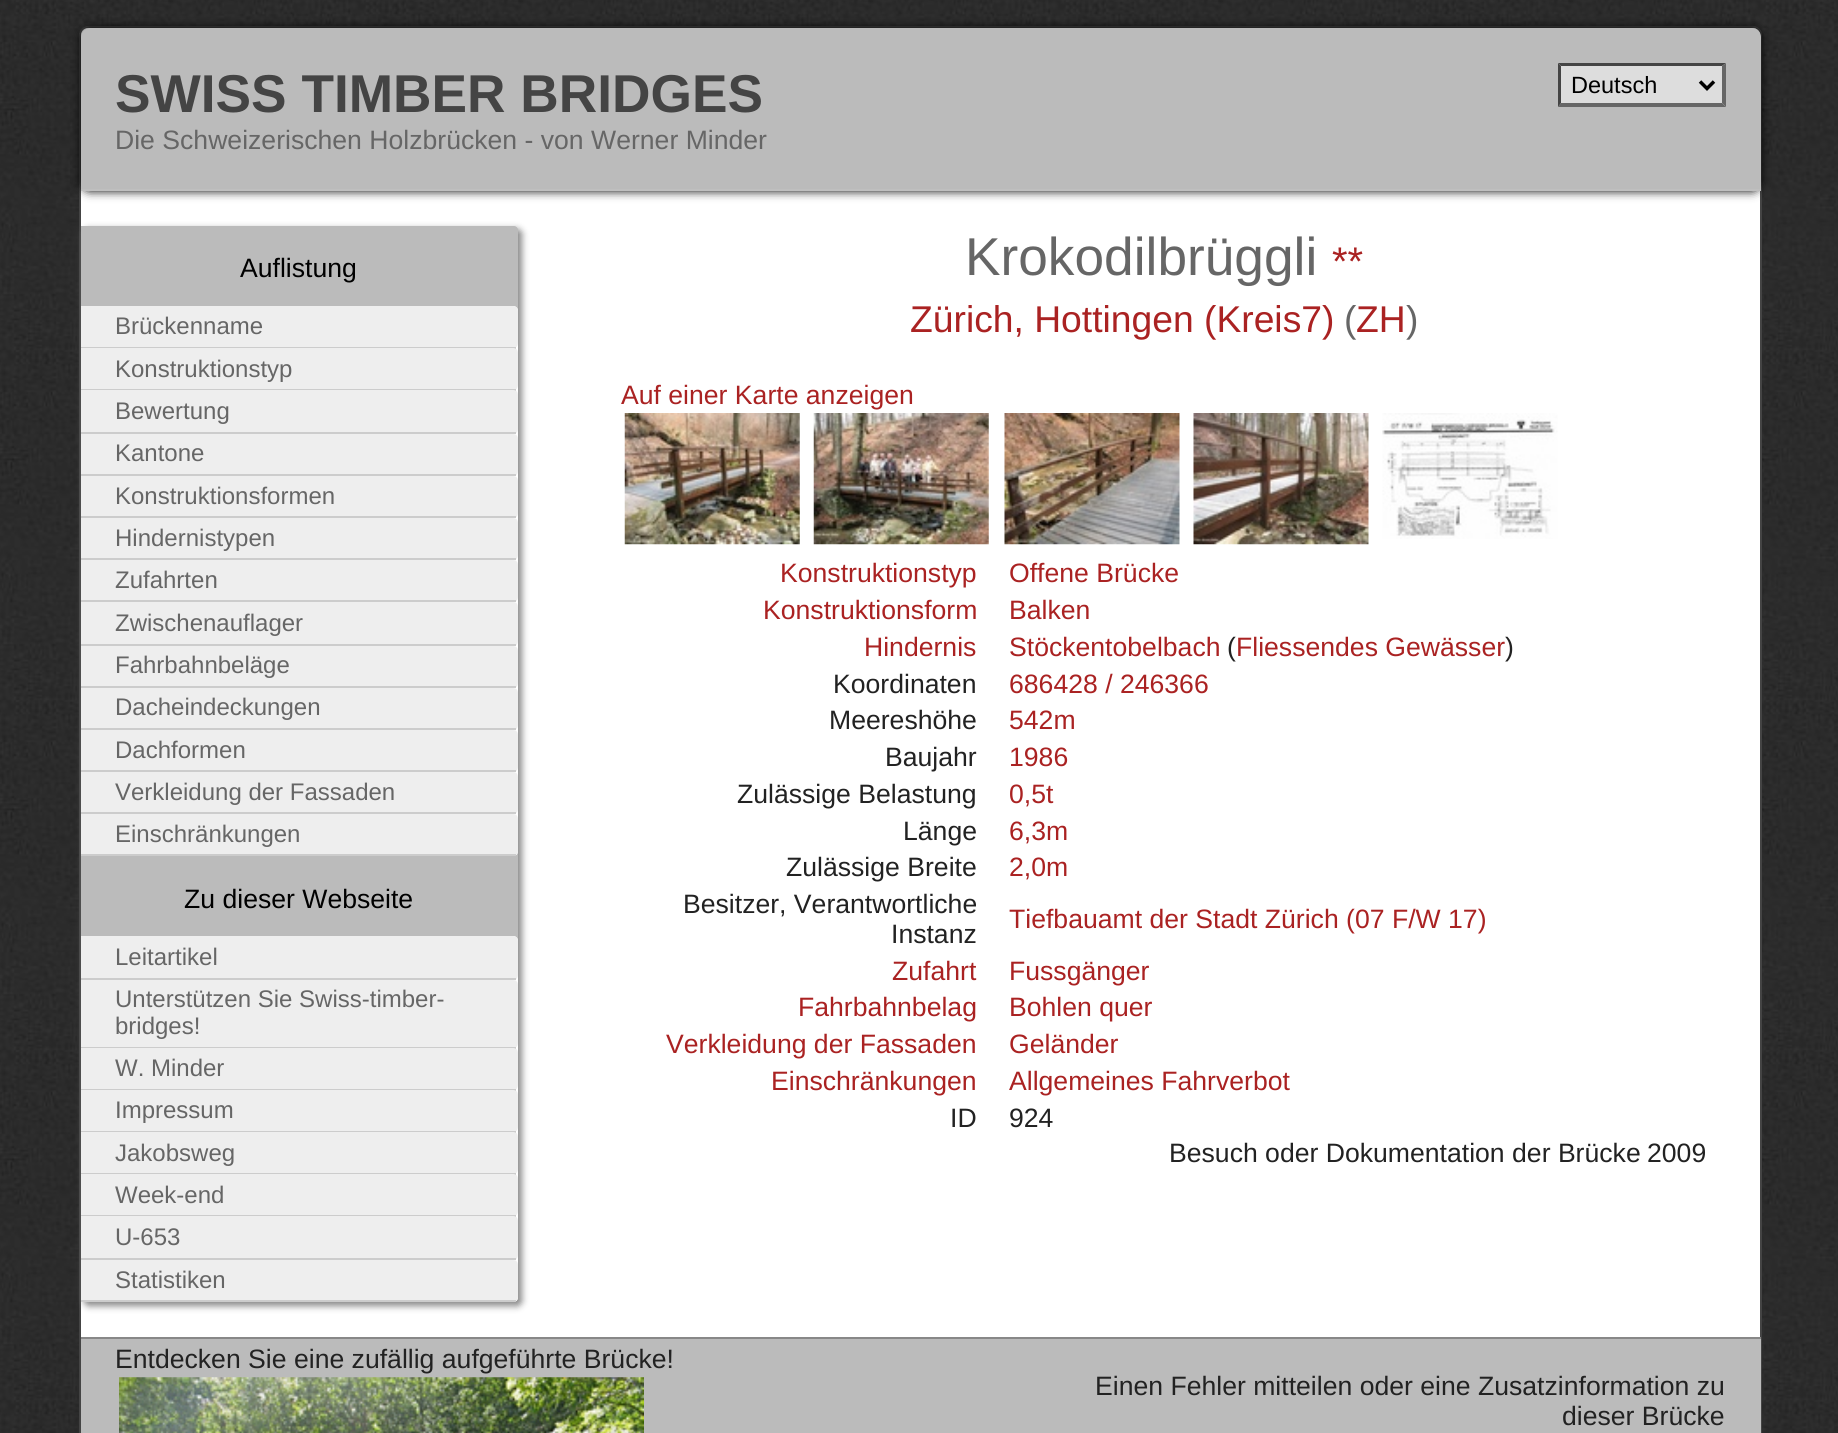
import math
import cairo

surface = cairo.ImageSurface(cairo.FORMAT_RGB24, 1838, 1433)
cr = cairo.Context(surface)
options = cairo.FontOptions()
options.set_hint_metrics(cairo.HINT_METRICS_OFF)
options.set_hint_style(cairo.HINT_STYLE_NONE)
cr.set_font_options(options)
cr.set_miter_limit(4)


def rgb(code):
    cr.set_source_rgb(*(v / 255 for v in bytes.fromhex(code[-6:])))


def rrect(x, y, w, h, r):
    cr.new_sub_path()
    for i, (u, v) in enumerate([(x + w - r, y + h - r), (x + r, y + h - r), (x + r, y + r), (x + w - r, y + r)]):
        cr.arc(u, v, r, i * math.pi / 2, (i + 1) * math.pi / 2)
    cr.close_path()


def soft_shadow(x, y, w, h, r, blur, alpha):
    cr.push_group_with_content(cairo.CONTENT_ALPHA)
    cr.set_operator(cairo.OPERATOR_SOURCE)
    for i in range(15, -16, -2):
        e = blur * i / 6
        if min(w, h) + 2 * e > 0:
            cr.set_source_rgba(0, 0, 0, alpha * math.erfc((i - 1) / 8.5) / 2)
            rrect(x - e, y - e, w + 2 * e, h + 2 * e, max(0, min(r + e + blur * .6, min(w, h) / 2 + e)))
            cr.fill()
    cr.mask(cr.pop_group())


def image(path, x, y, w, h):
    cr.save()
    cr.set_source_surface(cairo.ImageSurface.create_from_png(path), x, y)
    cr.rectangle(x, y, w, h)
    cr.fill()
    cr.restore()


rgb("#ffffff")
cr.paint()
image("img/1.png", 0, 0, 1838, 1433)
rgb("#ffffff")
rrect(80, 27, 1681, 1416, 8)
cr.fill_preserve()
rgb("#444444")
cr.stroke()
rgb("#000000")
soft_shadow(81, 28, 1680, 163, 9, 5, 1)
rgb("#bbbbbb")
cr.new_path()
cr.move_to(90, 28)
cr.line_to(1752, 28)
cr.curve_to(1757, 28, 1761, 32, 1761, 37)
cr.line_to(1761, 191)
cr.line_to(81, 191)
cr.line_to(81, 37)
cr.curve_to(81, 32, 85, 28, 90, 28)
cr.close_path()
cr.fill()
rgb("#bfbfbf")
cr.rectangle(81, 189, 1680, 2)
cr.fill()
rgb("#dddddd")
cr.rectangle(1558, 63, 168, 44)
cr.fill()
rgb("#444444")
cr.new_path()
cr.move_to(1558, 63)
cr.line_to(1726, 63)
cr.line_to(1722, 66)
cr.line_to(1561, 66)
cr.close_path()
cr.fill()
rgb("#666666")
cr.new_path()
cr.move_to(1726, 63)
cr.line_to(1726, 107)
cr.line_to(1722, 103)
cr.line_to(1722, 66)
cr.close_path()
cr.fill()
cr.new_path()
cr.move_to(1726, 107)
cr.line_to(1558, 107)
cr.line_to(1561, 103)
cr.line_to(1722, 103)
cr.close_path()
cr.fill()
rgb("#444444")
cr.new_path()
cr.move_to(1558, 107)
cr.line_to(1558, 63)
cr.line_to(1561, 66)
cr.line_to(1561, 103)
cr.close_path()
cr.fill()
cr.new_path()
cr.move_to(1700, 81.5)
cr.line_to(1707, 88.5)
cr.line_to(1714, 81.5)
rgb("#000000")
cr.set_line_width(3.5)
cr.stroke()
rgb("#888888")
soft_shadow(84, 229, 438, 1077, 5, 3.5, 1)
rgb("#bbbbbb")
cr.new_path()
cr.move_to(81, 226)
cr.line_to(513, 226)
cr.curve_to(516, 226, 518, 228, 518, 231)
cr.line_to(518, 1297)
cr.curve_to(518, 1300, 516, 1302, 513, 1302)
cr.line_to(81, 1302)
cr.close_path()
cr.fill()
cr.new_path()
cr.move_to(81, 226)
cr.line_to(513, 226)
cr.curve_to(516, 226, 518, 228, 518, 231)
cr.line_to(518, 851)
cr.curve_to(518, 854, 516, 856, 513, 856)
cr.line_to(81, 856)
cr.close_path()
cr.fill()
rgb("#ffffff")
cr.new_path()
cr.move_to(81, 306)
cr.line_to(513, 306)
cr.curve_to(516, 306, 518, 308, 518, 311)
cr.line_to(518, 851)
cr.curve_to(518, 854, 516, 856, 513, 856)
cr.line_to(81, 856)
cr.close_path()
cr.fill()
rgb("#eeeeee")
cr.new_path()
cr.move_to(81, 306)
cr.line_to(513, 306)
cr.curve_to(516, 306, 518, 308, 518, 311)
cr.line_to(518, 343)
cr.curve_to(518, 346, 516, 348, 513, 348)
cr.line_to(81, 348)
cr.close_path()
cr.fill()
rgb("#cccccc")
cr.rectangle(81, 347, 435, 2)
cr.fill()
rgb("#eeeeee")
cr.new_path()
cr.move_to(81, 348)
cr.line_to(513, 348)
cr.curve_to(516, 348, 518, 350, 518, 353)
cr.line_to(518, 385)
cr.curve_to(518, 388, 516, 390, 513, 390)
cr.line_to(81, 390)
cr.close_path()
cr.fill()
rgb("#cccccc")
cr.rectangle(81, 389, 435, 2)
cr.fill()
rgb("#eeeeee")
cr.new_path()
cr.move_to(81, 390)
cr.line_to(513, 390)
cr.curve_to(516, 390, 518, 392, 518, 395)
cr.line_to(518, 429)
cr.curve_to(518, 432, 516, 434, 513, 434)
cr.line_to(81, 434)
cr.close_path()
cr.fill()
rgb("#cccccc")
cr.rectangle(81, 432, 435, 2)
cr.fill()
rgb("#eeeeee")
cr.new_path()
cr.move_to(81, 434)
cr.line_to(513, 434)
cr.curve_to(516, 434, 518, 436, 518, 439)
cr.line_to(518, 471)
cr.curve_to(518, 474, 516, 476, 513, 476)
cr.line_to(81, 476)
cr.close_path()
cr.fill()
rgb("#cccccc")
cr.rectangle(81, 474, 435, 2)
cr.fill()
rgb("#eeeeee")
cr.new_path()
cr.move_to(81, 476)
cr.line_to(513, 476)
cr.curve_to(516, 476, 518, 478, 518, 481)
cr.line_to(518, 513)
cr.curve_to(518, 516, 516, 518, 513, 518)
cr.line_to(81, 518)
cr.close_path()
cr.fill()
rgb("#cccccc")
cr.rectangle(81, 516, 435, 2)
cr.fill()
rgb("#eeeeee")
cr.new_path()
cr.move_to(81, 518)
cr.line_to(513, 518)
cr.curve_to(516, 518, 518, 520, 518, 523)
cr.line_to(518, 555)
cr.curve_to(518, 558, 516, 560, 513, 560)
cr.line_to(81, 560)
cr.close_path()
cr.fill()
rgb("#cccccc")
cr.rectangle(81, 558, 435, 2)
cr.fill()
rgb("#eeeeee")
cr.new_path()
cr.move_to(81, 560)
cr.line_to(513, 560)
cr.curve_to(516, 560, 518, 562, 518, 565)
cr.line_to(518, 597)
cr.curve_to(518, 600, 516, 602, 513, 602)
cr.line_to(81, 602)
cr.close_path()
cr.fill()
rgb("#cccccc")
cr.rectangle(81, 600, 435, 2)
cr.fill()
rgb("#eeeeee")
cr.new_path()
cr.move_to(81, 602)
cr.line_to(513, 602)
cr.curve_to(516, 602, 518, 604, 518, 607)
cr.line_to(518, 641)
cr.curve_to(518, 644, 516, 646, 513, 646)
cr.line_to(81, 646)
cr.close_path()
cr.fill()
rgb("#cccccc")
cr.rectangle(81, 644, 435, 2)
cr.fill()
rgb("#eeeeee")
cr.new_path()
cr.move_to(81, 646)
cr.line_to(513, 646)
cr.curve_to(516, 646, 518, 648, 518, 651)
cr.line_to(518, 683)
cr.curve_to(518, 686, 516, 688, 513, 688)
cr.line_to(81, 688)
cr.close_path()
cr.fill()
rgb("#cccccc")
cr.rectangle(81, 686, 435, 2)
cr.fill()
rgb("#eeeeee")
cr.new_path()
cr.move_to(81, 688)
cr.line_to(513, 688)
cr.curve_to(516, 688, 518, 690, 518, 693)
cr.line_to(518, 725)
cr.curve_to(518, 728, 516, 730, 513, 730)
cr.line_to(81, 730)
cr.close_path()
cr.fill()
rgb("#cccccc")
cr.rectangle(81, 728, 435, 2)
cr.fill()
rgb("#eeeeee")
cr.new_path()
cr.move_to(81, 730)
cr.line_to(513, 730)
cr.curve_to(516, 730, 518, 732, 518, 735)
cr.line_to(518, 767)
cr.curve_to(518, 770, 516, 772, 513, 772)
cr.line_to(81, 772)
cr.close_path()
cr.fill()
rgb("#cccccc")
cr.rectangle(81, 770, 435, 2)
cr.fill()
rgb("#eeeeee")
cr.new_path()
cr.move_to(81, 772)
cr.line_to(513, 772)
cr.curve_to(516, 772, 518, 774, 518, 777)
cr.line_to(518, 809)
cr.curve_to(518, 812, 516, 814, 513, 814)
cr.line_to(81, 814)
cr.close_path()
cr.fill()
rgb("#cccccc")
cr.rectangle(81, 812, 435, 2)
cr.fill()
rgb("#eeeeee")
cr.new_path()
cr.move_to(81, 814)
cr.line_to(513, 814)
cr.curve_to(516, 814, 518, 816, 518, 819)
cr.line_to(518, 851)
cr.curve_to(518, 854, 516, 856, 513, 856)
cr.line_to(81, 856)
cr.close_path()
cr.fill()
rgb("#cccccc")
cr.rectangle(81, 854, 435, 2)
cr.fill()
rgb("#bbbbbb")
cr.new_path()
cr.move_to(81, 856)
cr.line_to(513, 856)
cr.curve_to(516, 856, 518, 858, 518, 861)
cr.line_to(518, 1297)
cr.curve_to(518, 1300, 516, 1302, 513, 1302)
cr.line_to(81, 1302)
cr.close_path()
cr.fill()
rgb("#ffffff")
cr.new_path()
cr.move_to(81, 936)
cr.line_to(513, 936)
cr.curve_to(516, 936, 518, 938, 518, 941)
cr.line_to(518, 1297)
cr.curve_to(518, 1300, 516, 1302, 513, 1302)
cr.line_to(81, 1302)
cr.close_path()
cr.fill()
rgb("#eeeeee")
cr.new_path()
cr.move_to(81, 936)
cr.line_to(513, 936)
cr.curve_to(516, 936, 518, 938, 518, 941)
cr.line_to(518, 975)
cr.curve_to(518, 978, 516, 980, 513, 980)
cr.line_to(81, 980)
cr.close_path()
cr.fill()
rgb("#cccccc")
cr.rectangle(81, 978, 435, 2)
cr.fill()
rgb("#eeeeee")
cr.new_path()
cr.move_to(81, 980)
cr.line_to(513, 980)
cr.curve_to(516, 980, 518, 982, 518, 985)
cr.line_to(518, 1043)
cr.curve_to(518, 1046, 516, 1048, 513, 1048)
cr.line_to(81, 1048)
cr.close_path()
cr.fill()
rgb("#cccccc")
cr.rectangle(81, 1047, 435, 2)
cr.fill()
rgb("#eeeeee")
cr.new_path()
cr.move_to(81, 1048)
cr.line_to(513, 1048)
cr.curve_to(516, 1048, 518, 1050, 518, 1053)
cr.line_to(518, 1085)
cr.curve_to(518, 1088, 516, 1090, 513, 1090)
cr.line_to(81, 1090)
cr.close_path()
cr.fill()
rgb("#cccccc")
cr.rectangle(81, 1089, 435, 2)
cr.fill()
rgb("#eeeeee")
cr.new_path()
cr.move_to(81, 1090)
cr.line_to(513, 1090)
cr.curve_to(516, 1090, 518, 1092, 518, 1095)
cr.line_to(518, 1127)
cr.curve_to(518, 1130, 516, 1132, 513, 1132)
cr.line_to(81, 1132)
cr.close_path()
cr.fill()
rgb("#cccccc")
cr.rectangle(81, 1131, 435, 2)
cr.fill()
rgb("#eeeeee")
cr.new_path()
cr.move_to(81, 1132)
cr.line_to(513, 1132)
cr.curve_to(516, 1132, 518, 1134, 518, 1137)
cr.line_to(518, 1169)
cr.curve_to(518, 1172, 516, 1174, 513, 1174)
cr.line_to(81, 1174)
cr.close_path()
cr.fill()
rgb("#cccccc")
cr.rectangle(81, 1173, 435, 2)
cr.fill()
rgb("#eeeeee")
cr.new_path()
cr.move_to(81, 1174)
cr.line_to(513, 1174)
cr.curve_to(516, 1174, 518, 1176, 518, 1179)
cr.line_to(518, 1211)
cr.curve_to(518, 1214, 516, 1216, 513, 1216)
cr.line_to(81, 1216)
cr.close_path()
cr.fill()
rgb("#cccccc")
cr.rectangle(81, 1215, 435, 2)
cr.fill()
rgb("#eeeeee")
cr.new_path()
cr.move_to(81, 1216)
cr.line_to(513, 1216)
cr.curve_to(516, 1216, 518, 1218, 518, 1221)
cr.line_to(518, 1255)
cr.curve_to(518, 1258, 516, 1260, 513, 1260)
cr.line_to(81, 1260)
cr.close_path()
cr.fill()
rgb("#cccccc")
cr.rectangle(81, 1258, 435, 2)
cr.fill()
rgb("#eeeeee")
cr.new_path()
cr.move_to(81, 1260)
cr.line_to(513, 1260)
cr.curve_to(516, 1260, 518, 1262, 518, 1265)
cr.line_to(518, 1297)
cr.curve_to(518, 1300, 516, 1302, 513, 1302)
cr.line_to(81, 1302)
cr.close_path()
cr.fill()
rgb("#cccccc")
cr.rectangle(81, 1300, 435, 2)
cr.fill()
image("img/2.png", 624, 413, 176, 132)
image("img/3.png", 813, 413, 176, 132)
image("img/4.png", 1004, 413, 176, 132)
image("img/5.png", 1193, 413, 176, 132)
image("img/6.png", 1382, 413, 176, 126)
rgb("#bbbbbb")
cr.rectangle(81, 1339, 1680, 94)
cr.fill()
rgb("#888888")
cr.rectangle(81, 1337, 1680, 2)
cr.fill()
image("img/7.png", 119, 1377, 525, 56)
cr.select_font_face("Liberation Sans", cairo.FONT_SLANT_NORMAL, cairo.FONT_WEIGHT_BOLD)
cr.set_font_size(53.25)
rgb("#444444")
cr.move_to(115, 112)
cr.show_text("SWISS TIMBER BRIDGES")
cr.select_font_face("Liberation Sans")
cr.set_font_size(23.5)
rgb("#000000")
cr.move_to(1571, 93)
cr.show_text("Deutsch")
cr.set_font_size(26.6)
rgb("#666666")
cr.move_to(115, 149)
cr.show_text("Die Schweizerischen Holzbrücken - von Werner Minder")
rgb("#000000")
cr.move_to(240, 277)
cr.show_text("Auflistung")
cr.set_font_size(24)
rgb("#666666")
for x, y, s in [
    (115, 334, "Brückenname"),
    (115, 377, "Konstruktionstyp"),
    (115, 419, "Bewertung"),
    (115, 461, "Kantone"),
    (115, 504, "Konstruktionsformen"),
    (115, 546, "Hindernistypen"),
    (115, 588, "Zufahrten"),
    (115, 631, "Zwischenauflager"),
    (115, 673, "Fahrbahnbeläge"),
    (115, 715, "Dacheindeckungen"),
    (115, 758, "Dachformen"),
    (115, 800, "Verkleidung der Fassaden"),
    (115, 842, "Einschränkungen"),
]:
    cr.move_to(x, y)
    cr.show_text(s)
cr.set_font_size(26.6)
rgb("#000000")
cr.move_to(184, 908)
cr.show_text("Zu dieser Webseite")
cr.set_font_size(24)
rgb("#666666")
for x, y, s in [
    (115, 965, "Leitartikel"),
    (115, 1007, "Unterstützen Sie Swiss-timber-"),
    (115, 1034, "bridges!"),
    (115, 1076, "W. Minder"),
    (115, 1118, "Impressum"),
    (115, 1161, "Jakobsweg"),
    (115, 1203, "Week-end"),
    (115, 1245, "U-653"),
    (115, 1288, "Statistiken"),
]:
    cr.move_to(x, y)
    cr.show_text(s)
cr.set_font_size(53.25)
cr.move_to(965, 275)
cr.show_text("Krokodilbrüggli")
cr.set_font_size(40)
rgb("#aa2222")
cr.move_to(1332, 275)
cr.show_text("**")
cr.set_font_size(37.25)
cr.move_to(910, 332)
cr.show_text("Zürich, Hottingen (Kreis7)")
rgb("#666666")
cr.move_to(1344, 332)
cr.show_text("(")
rgb("#aa2222")
cr.move_to(1356, 332)
cr.show_text("ZH")
rgb("#666666")
cr.move_to(1406, 332)
cr.show_text(")")
cr.set_font_size(26.6)
rgb("#aa2222")
for x, y, s in [
    (621, 404, "Auf einer Karte anzeigen"),
    (780, 582, "Konstruktionstyp"),
    (1009, 582, "Offene Brücke"),
    (763, 619, "Konstruktionsform"),
    (1009, 619, "Balken"),
    (864, 656, "Hindernis"),
    (1009, 656, "Stöckentobelbach"),
]:
    cr.move_to(x, y)
    cr.show_text(s)
rgb("#222222")
cr.move_to(1227, 656)
cr.show_text("(")
rgb("#aa2222")
cr.move_to(1236, 656)
cr.show_text("Fliessendes Gewässer")
rgb("#222222")
cr.move_to(1505, 656)
cr.show_text(")")
cr.move_to(833, 693)
cr.show_text("Koordinaten")
rgb("#aa2222")
cr.move_to(1009, 693)
cr.show_text("686428 / 246366")
rgb("#222222")
cr.move_to(829, 729)
cr.show_text("Meereshöhe")
rgb("#aa2222")
cr.move_to(1009, 729)
cr.show_text("542m")
rgb("#222222")
cr.move_to(885, 766)
cr.show_text("Baujahr")
rgb("#aa2222")
cr.move_to(1009, 766)
cr.show_text("1986")
rgb("#222222")
cr.move_to(737, 803)
cr.show_text("Zulässige Belastung")
rgb("#aa2222")
cr.move_to(1009, 803)
cr.show_text("0,5t")
rgb("#222222")
cr.move_to(903, 840)
cr.show_text("Länge")
rgb("#aa2222")
cr.move_to(1009, 840)
cr.show_text("6,3m")
rgb("#222222")
cr.move_to(786, 876)
cr.show_text("Zulässige Breite")
rgb("#aa2222")
cr.move_to(1009, 876)
cr.show_text("2,0m")
rgb("#222222")
cr.move_to(683, 913)
cr.show_text("Besitzer, Verantwortliche")
cr.move_to(891, 943)
cr.show_text("Instanz")
rgb("#aa2222")
for x, y, s in [
    (1009, 928, "Tiefbauamt der Stadt Zürich (07 F/W 17)"),
    (892, 980, "Zufahrt"),
    (1009, 980, "Fussgänger"),
    (798, 1016, "Fahrbahnbelag"),
    (1009, 1016, "Bohlen quer"),
    (666, 1053, "Verkleidung der Fassaden"),
    (1009, 1053, "Geländer"),
    (771, 1090, "Einschränkungen"),
    (1009, 1090, "Allgemeines Fahrverbot"),
]:
    cr.move_to(x, y)
    cr.show_text(s)
rgb("#222222")
for x, y, s in [
    (950, 1127, "ID"),
    (1009, 1127, "924"),
    (1169, 1162, "Besuch oder Dokumentation der Brücke"),
    (1647, 1162, "2009"),
    (115, 1368, "Entdecken Sie eine zufällig aufgeführte Brücke!"),
    (1095, 1395, "Einen Fehler mitteilen oder eine Zusatzinformation zu"),
    (1562, 1425, "dieser Brücke"),
]:
    cr.move_to(x, y)
    cr.show_text(s)
surface.write_to_png("page.png")
